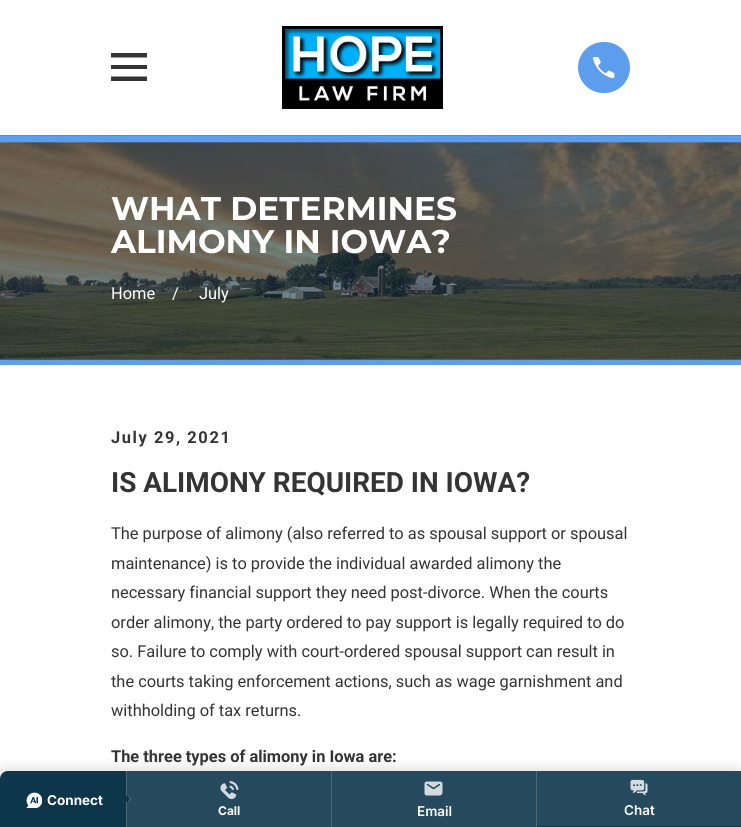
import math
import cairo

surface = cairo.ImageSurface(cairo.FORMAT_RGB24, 741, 827)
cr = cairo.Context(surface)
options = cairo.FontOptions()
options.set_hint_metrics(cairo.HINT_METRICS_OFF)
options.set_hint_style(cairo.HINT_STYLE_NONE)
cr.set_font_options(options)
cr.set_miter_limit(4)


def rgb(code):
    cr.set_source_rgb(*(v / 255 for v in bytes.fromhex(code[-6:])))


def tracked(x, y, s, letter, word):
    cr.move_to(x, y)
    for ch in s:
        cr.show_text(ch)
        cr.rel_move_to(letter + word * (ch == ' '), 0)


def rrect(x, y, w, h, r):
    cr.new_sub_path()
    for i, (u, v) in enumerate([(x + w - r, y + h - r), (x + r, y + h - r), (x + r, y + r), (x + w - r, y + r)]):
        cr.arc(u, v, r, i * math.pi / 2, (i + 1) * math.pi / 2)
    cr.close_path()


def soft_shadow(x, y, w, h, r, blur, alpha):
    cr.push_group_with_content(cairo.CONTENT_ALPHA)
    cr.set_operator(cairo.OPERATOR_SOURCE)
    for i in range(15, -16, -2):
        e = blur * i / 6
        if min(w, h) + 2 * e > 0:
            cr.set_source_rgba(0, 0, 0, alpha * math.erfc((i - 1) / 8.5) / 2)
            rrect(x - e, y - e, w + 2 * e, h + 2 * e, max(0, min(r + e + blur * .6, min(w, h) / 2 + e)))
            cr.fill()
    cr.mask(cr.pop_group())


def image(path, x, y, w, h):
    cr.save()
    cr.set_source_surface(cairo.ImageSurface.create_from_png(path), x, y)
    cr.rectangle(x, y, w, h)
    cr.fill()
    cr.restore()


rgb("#ffffff")
cr.paint()
rgb("#343434")
cr.new_path()
cr.move_to(111, 53)
cr.line_to(111, 57.5)
cr.line_to(147, 57.5)
cr.line_to(147, 53)
cr.close_path()
cr.move_to(111, 65)
cr.line_to(111, 69)
cr.line_to(147, 69)
cr.line_to(147, 65)
cr.close_path()
cr.move_to(111, 76.5)
cr.line_to(111, 81)
cr.line_to(147, 81)
cr.line_to(147, 76.5)
cr.close_path()
cr.fill()
image("img/1.png", 282, 26, 161, 83)
rgb("#5d9eec")
rrect(578, 42, 52, 51, 25.5)
cr.fill()
image("img/2.png", 593, 57, 22, 21)
image("img/3.png", 0, 135, 741, 230)
rgb("#000000")
soft_shadow(-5, 766, 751, 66, 13, 5, 0.1)
rgb("#0d364b")
cr.new_path()
cr.move_to(8, 771)
cr.line_to(741, 771)
cr.line_to(741, 827)
cr.line_to(0, 827)
cr.line_to(0, 779)
cr.curve_to(0, 774.5, 3.5, 771, 8, 771)
cr.close_path()
cr.fill()
rgb("#4a6878")
cr.rectangle(126, 771, 1, 56)
cr.fill()
image("img/4.png", 26, 792, 16, 16)
rgb("#254a5d")
cr.rectangle(127, 771, 204, 56)
cr.fill()
rgb("#0d364b")
cr.new_path()
cr.move_to(127.5, 795)
cr.line_to(131.5, 799)
cr.line_to(127.5, 803)
cr.line_to(123, 799)
cr.close_path()
cr.fill()
rgb("#4c6a7a")
cr.new_path()
cr.move_to(127.5, 795)
cr.line_to(131.5, 799)
cr.line_to(130, 799)
cr.line_to(127.5, 796)
cr.close_path()
cr.move_to(131.5, 799)
cr.line_to(127.5, 803)
cr.line_to(127.5, 802)
cr.line_to(130, 799)
cr.close_path()
cr.fill()
rgb("#4a6878")
cr.rectangle(331, 771, 1, 56)
cr.fill()
image("img/5.png", 220, 781, 19, 18)
cr.rectangle(536, 771, 1, 56)
cr.fill()
rgb("#254a5d")
cr.rectangle(332, 771, 204, 56)
cr.fill()
image("img/6.png", 424, 781, 19, 15)
cr.rectangle(537, 771, 204, 55)
cr.fill()
image("img/7.png", 630, 779, 18, 17)
cr.select_font_face("Montserrat", cairo.FONT_SLANT_NORMAL, cairo.FONT_WEIGHT_BOLD)
cr.set_font_size(32.75)
rgb("#ffffff")
cr.move_to(111, 220)
cr.show_text("WHAT DETERMINES")
cr.move_to(111, 253)
cr.show_text("ALIMONY IN IOWA?")
cr.select_font_face("Roboto")
cr.set_font_size(16.4)
for x, y, s in [
    (111, 299, "Home"),
    (172, 299, "/"),
    (199, 299, "July"),
]:
    cr.move_to(x, y)
    cr.show_text(s)
cr.select_font_face("Roboto", cairo.FONT_SLANT_NORMAL, cairo.FONT_WEIGHT_BOLD)
rgb("#343434")
tracked(111, 443, "July 29, 2021", 1.6, 0)
cr.set_font_size(27.9)
cr.move_to(111, 492)
cr.show_text("IS ALIMONY REQUIRED IN IOWA?")
cr.select_font_face("Roboto")
cr.set_font_size(16.4)
for x, y, s in [
    (111, 539, "The purpose of alimony (also referred to as spousal support or spousal"),
    (111, 569, "maintenance) is to provide the individual awarded alimony the"),
    (111, 598, "necessary financial support they need post-divorce. When the courts"),
    (111, 628, "order alimony, the party ordered to pay support is legally required to do"),
    (111, 657, "so. Failure to comply with court-ordered spousal support can result in"),
    (111, 687, "the courts taking enforcement actions, such as wage garnishment and"),
    (111, 716, "withholding of tax returns."),
]:
    cr.move_to(x, y)
    cr.show_text(s)
cr.select_font_face("Roboto", cairo.FONT_SLANT_NORMAL, cairo.FONT_WEIGHT_BOLD)
cr.move_to(111, 762)
cr.show_text("The three types of alimony in Iowa are:")
cr.select_font_face("Inter", cairo.FONT_SLANT_NORMAL, cairo.FONT_WEIGHT_BOLD)
cr.set_font_size(13.5)
rgb("#ffffff")
cr.move_to(47, 805)
cr.show_text("Connect")
cr.set_font_size(12)
cr.move_to(218, 815)
cr.show_text("Call")
cr.select_font_face("Inter SemiBold")
cr.set_font_size(13.5)
cr.move_to(417, 816)
cr.show_text("Email")
cr.move_to(624, 815)
cr.show_text("Chat")
surface.write_to_png("page.png")
